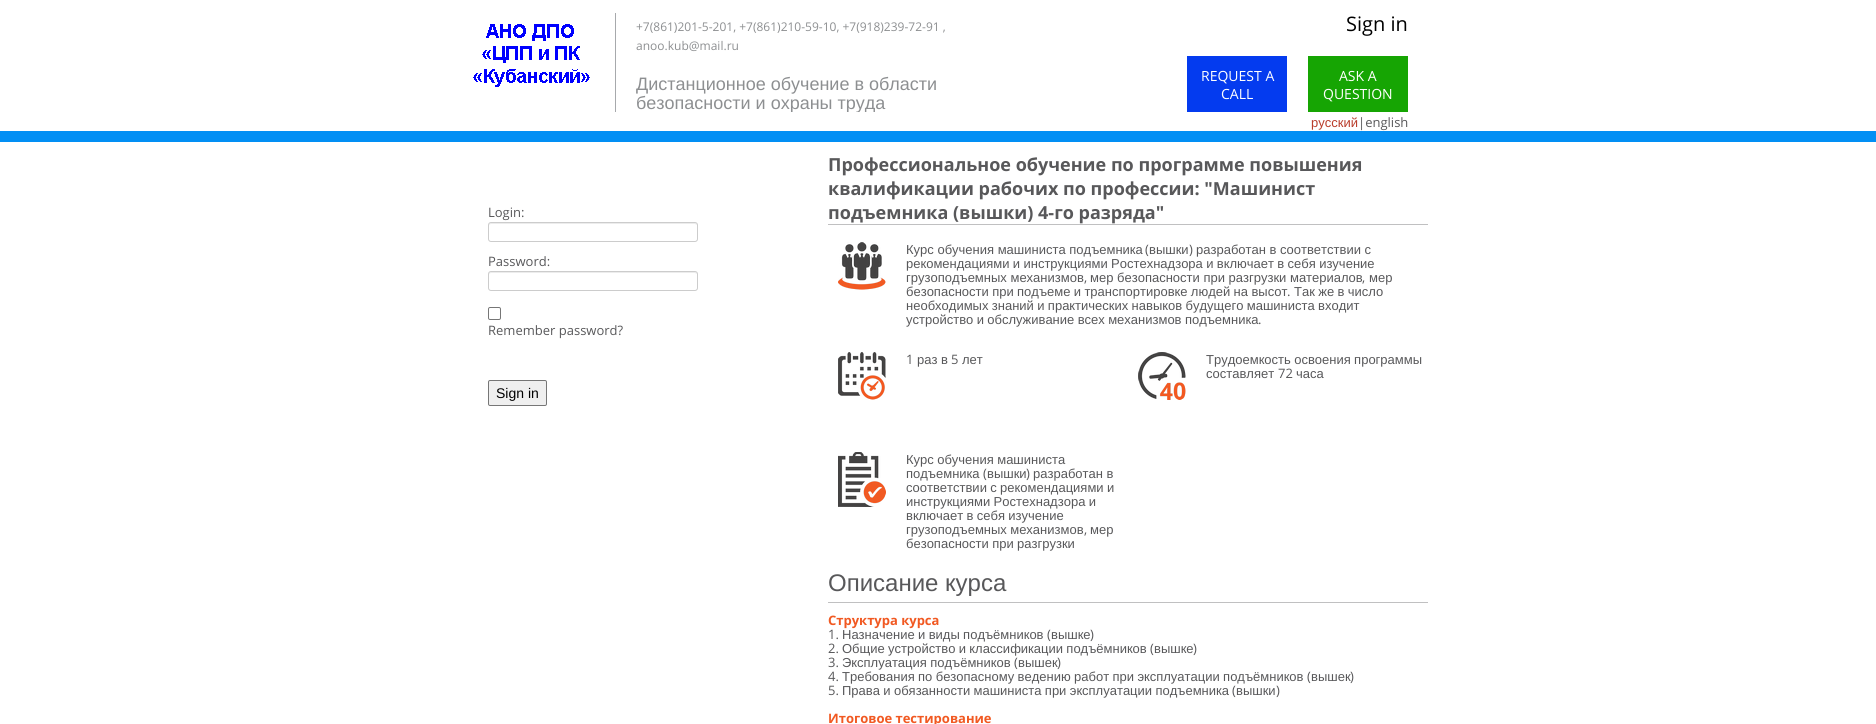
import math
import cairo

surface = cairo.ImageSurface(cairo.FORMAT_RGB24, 1876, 724)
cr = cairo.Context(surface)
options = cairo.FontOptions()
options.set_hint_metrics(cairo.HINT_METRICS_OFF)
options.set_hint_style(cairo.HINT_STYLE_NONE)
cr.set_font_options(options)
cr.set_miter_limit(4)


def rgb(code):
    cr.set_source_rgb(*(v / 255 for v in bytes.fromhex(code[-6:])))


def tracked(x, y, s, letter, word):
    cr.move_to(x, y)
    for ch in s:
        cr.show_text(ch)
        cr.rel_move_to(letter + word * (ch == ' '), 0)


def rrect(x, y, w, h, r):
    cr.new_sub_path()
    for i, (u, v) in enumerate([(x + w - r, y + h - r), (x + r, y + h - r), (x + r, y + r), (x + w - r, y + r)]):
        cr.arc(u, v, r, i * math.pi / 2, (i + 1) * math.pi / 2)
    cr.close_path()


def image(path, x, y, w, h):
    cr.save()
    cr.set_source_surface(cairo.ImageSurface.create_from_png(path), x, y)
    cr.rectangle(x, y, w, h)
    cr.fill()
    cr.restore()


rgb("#ffffff")
cr.paint()
rgb("#028ff4")
cr.rectangle(0, 131, 1876, 11)
cr.fill()
image("img/1.png", 473, 24, 117, 63)
for x, y, w, h, color in [
    (615, 13, 1, 99, "#a7a9ac"),
    (1187, 56, 100, 56, "#043bef"),
    (1308, 56, 100, 56, "#16a503"),
]:
    rgb(color)
    cr.rectangle(x, y, w, h)
    cr.fill()
rgb("#ececec")
cr.new_path()
cr.move_to(491, 224)
cr.line_to(695, 224)
cr.line_to(697, 225)
cr.line_to(697, 226)
cr.curve_to(697, 225, 697, 223, 695, 223)
cr.line_to(491, 223)
cr.curve_to(489, 223, 489, 225, 489, 226)
cr.curve_to(489, 225, 490, 224, 491, 224)
cr.close_path()
cr.fill()
rrect(488.5, 222.5, 209, 19, 2.5)
rgb("#cccccc")
cr.set_line_width(1)
cr.stroke()
rgb("#ececec")
cr.new_path()
cr.move_to(491, 273)
cr.line_to(695, 273)
cr.line_to(697, 274)
cr.line_to(697, 275)
cr.curve_to(697, 274, 697, 272, 695, 272)
cr.line_to(491, 272)
cr.curve_to(489, 272, 489, 274, 489, 275)
cr.curve_to(489, 274, 490, 273, 491, 273)
cr.close_path()
cr.fill()
rrect(488.5, 271.5, 209, 19, 2.5)
rgb("#cccccc")
cr.stroke()
rrect(488.5, 307.5, 12, 12, 1.5)
rgb("#767676")
cr.stroke()
rgb("#efefef")
rrect(488.5, 380.5, 58, 25, 1.5)
cr.fill_preserve()
rgb("#767676")
cr.stroke()
rgb("#c0c0c1")
cr.rectangle(828, 224, 600, 1)
cr.fill()
image("img/2.png", 838, 242, 48, 48)
image("img/3.png", 838, 352, 48, 48)
image("img/4.png", 1138, 352, 48, 48)
image("img/5.png", 838, 452, 48, 55)
cr.rectangle(828, 602, 600, 1)
cr.fill()
cr.select_font_face("Open Sans")
cr.set_font_size(12)
rgb("#8d8f91")
cr.move_to(636, 31)
cr.show_text("+7(861)201-5-201, +7(861)210-59-10, +7(918)239-72-91 ,")
cr.move_to(636, 50)
cr.show_text("anoo.kub@mail.ru")
cr.select_font_face("Liberation Sans")
cr.set_font_size(18)
cr.move_to(636, 90)
cr.show_text("Дистанционное обучение в области")
cr.save()
cr.rectangle(616, 13, 420, 99)
cr.clip()
cr.move_to(636, 109)
cr.show_text("безопасности и охраны труда")
cr.restore()
cr.select_font_face("Open Sans")
cr.set_font_size(20)
rgb("#000000")
cr.move_to(1346, 31)
cr.show_text("Sign in")
cr.set_font_size(14)
rgb("#ffffff")
for x, y, s in [
    (1201, 81, "REQUEST A"),
    (1221, 99, "CALL"),
    (1339, 81, "ASK A"),
    (1323, 99, "QUESTION"),
]:
    cr.move_to(x, y)
    cr.show_text(s)
cr.select_font_face("Liberation Sans")
cr.set_font_size(13)
rgb("#b93d2b")
cr.move_to(1311, 127)
cr.show_text("русский")
cr.select_font_face("Open Sans")
rgb("#58585a")
for x, y, s in [
    (1358, 127, "|english"),
    (488, 217, "Login:"),
    (488, 266, "Password:"),
    (488, 335, "Remember password?"),
]:
    cr.move_to(x, y)
    cr.show_text(s)
cr.select_font_face("Liberation Sans")
cr.set_font_size(14)
rgb("#000000")
cr.move_to(496, 398)
cr.show_text("Sign in")
cr.select_font_face("Open Sans", cairo.FONT_SLANT_NORMAL, cairo.FONT_WEIGHT_BOLD)
cr.set_font_size(18)
rgb("#58585a")
for x, y, s in [
    (828, 171, "Профессиональное обучение по программе повышения"),
    (828, 195, "квалификации рабочих по профессии: \"Машинист"),
    (828, 219, "подъемника (вышки) 4-го разряда\""),
]:
    cr.move_to(x, y)
    cr.show_text(s)
cr.select_font_face("Liberation Sans")
cr.set_font_size(13)
cr.move_to(906, 254)
cr.show_text("Курс обучения машиниста подъемника")
cr.select_font_face("Open Sans")
cr.move_to(1145, 254)
cr.show_text("(")
cr.select_font_face("Liberation Sans")
cr.move_to(1149, 254)
cr.show_text("вышки")
cr.select_font_face("Open Sans")
cr.move_to(1189, 254)
cr.show_text(")")
cr.select_font_face("Liberation Sans")
cr.move_to(1196, 254)
cr.show_text("разработан в соответствии с")
tracked(906, 268, "рекомендациями и инструкциями Ростехнадзора и включает в себя изучение", 0, -0.25)
cr.move_to(906, 282)
cr.show_text("грузоподъемных механизмов")
cr.select_font_face("Open Sans")
cr.move_to(1084, 282)
cr.show_text(",")
cr.select_font_face("Liberation Sans")
cr.move_to(1090, 282)
cr.show_text("мер безопасности при разгрузки материалов")
cr.select_font_face("Open Sans")
cr.move_to(1362, 282)
cr.show_text(",")
cr.select_font_face("Liberation Sans")
cr.move_to(1369, 282)
cr.show_text("мер")
tracked(906, 296, "безопасности при подъеме и транспортировке людей на высот", 0, -0.25)
cr.select_font_face("Open Sans")
cr.move_to(1287, 296)
cr.show_text(".")
cr.select_font_face("Liberation Sans")
for x, y, s in [
    (1294, 296, "Так же в число"),
    (906, 310, "необходимых знаний и практических навыков будущего машиниста входит"),
    (906, 324, "устройство и обслуживание всех механизмов подъемника"),
]:
    tracked(x, y, s, 0, -0.25)
cr.select_font_face("Open Sans")
cr.move_to(1258, 324)
cr.show_text(".")
cr.move_to(906, 364)
cr.show_text("1")
cr.select_font_face("Liberation Sans")
cr.move_to(917, 364)
cr.show_text("раз в")
cr.select_font_face("Open Sans")
cr.move_to(951, 364)
cr.show_text("5")
cr.select_font_face("Liberation Sans")
cr.move_to(962, 364)
cr.show_text("лет")
tracked(1206, 364, "Трудоемкость освоения программы", 0, -0.25)
cr.move_to(1206, 378)
cr.show_text("составляет")
cr.select_font_face("Open Sans")
cr.move_to(1278, 378)
cr.show_text("72")
cr.select_font_face("Liberation Sans")
cr.move_to(1296, 378)
cr.show_text("часа")
tracked(906, 464, "Курс обучения машиниста", 0, -0.25)
cr.move_to(906, 478)
cr.show_text("подъемника")
cr.select_font_face("Open Sans")
cr.move_to(983, 478)
cr.show_text("(")
cr.select_font_face("Liberation Sans")
cr.move_to(987, 478)
cr.show_text("вышки")
cr.select_font_face("Open Sans")
cr.move_to(1026, 478)
cr.show_text(")")
cr.select_font_face("Liberation Sans")
cr.move_to(1033, 478)
cr.show_text("разработан в")
for x, y, s in [
    (906, 492, "соответствии с рекомендациями и"),
    (906, 506, "инструкциями Ростехнадзора и"),
    (906, 520, "включает в себя изучение"),
    (906, 534, "грузоподъемных механизмов"),
]:
    tracked(x, y, s, 0, -0.25)
cr.select_font_face("Open Sans")
cr.move_to(1084, 534)
cr.show_text(",")
cr.select_font_face("Liberation Sans")
cr.move_to(1090, 534)
cr.show_text("мер")
tracked(906, 548, "безопасности при разгрузки", 0, -0.25)
cr.set_font_size(24)
cr.move_to(828, 591)
cr.show_text("Описание курса")
cr.select_font_face("Open Sans", cairo.FONT_SLANT_NORMAL, cairo.FONT_WEIGHT_BOLD)
cr.set_font_size(13)
rgb("#f15922")
cr.move_to(828, 625)
cr.show_text("Структура курса")
cr.select_font_face("Open Sans")
rgb("#58585a")
cr.move_to(828, 639)
cr.show_text("1.")
cr.select_font_face("Liberation Sans")
tracked(842, 639, "Назначение и виды подъёмников", 0, -0.25)
cr.select_font_face("Open Sans")
cr.move_to(1047, 639)
cr.show_text("(")
cr.select_font_face("Liberation Sans")
cr.move_to(1051, 639)
cr.show_text("вышке")
cr.select_font_face("Open Sans")
cr.move_to(1090, 639)
cr.show_text(")")
cr.move_to(828, 653)
cr.show_text("2.")
cr.select_font_face("Liberation Sans")
tracked(842, 653, "Общие устройство и классификации подъёмников", 0, -0.25)
cr.select_font_face("Open Sans")
cr.move_to(1150, 653)
cr.show_text("(")
cr.select_font_face("Liberation Sans")
cr.move_to(1154, 653)
cr.show_text("вышке")
cr.select_font_face("Open Sans")
cr.move_to(1193, 653)
cr.show_text(")")
cr.move_to(828, 667)
cr.show_text("3.")
cr.select_font_face("Liberation Sans")
tracked(842, 667, "Эксплуатация подъёмников", 0, -0.25)
cr.select_font_face("Open Sans")
cr.move_to(1014, 667)
cr.show_text("(")
cr.select_font_face("Liberation Sans")
cr.move_to(1018, 667)
cr.show_text("вышек")
cr.select_font_face("Open Sans")
cr.move_to(1057, 667)
cr.show_text(")")
cr.move_to(828, 681)
cr.show_text("4.")
cr.select_font_face("Liberation Sans")
tracked(842, 681, "Требования по безопасному ведению работ при эксплуатации подъёмников", 0, -0.25)
cr.select_font_face("Open Sans")
cr.move_to(1307, 681)
cr.show_text("(")
cr.select_font_face("Liberation Sans")
cr.move_to(1311, 681)
cr.show_text("вышек")
cr.select_font_face("Open Sans")
cr.move_to(1350, 681)
cr.show_text(")")
cr.move_to(828, 695)
cr.show_text("5.")
cr.select_font_face("Liberation Sans")
tracked(842, 695, "Права и обязанности машиниста при эксплуатации подъемника", 0, -0.25)
cr.select_font_face("Open Sans")
cr.move_to(1232, 695)
cr.show_text("(")
cr.select_font_face("Liberation Sans")
cr.move_to(1236, 695)
cr.show_text("вышки")
cr.select_font_face("Open Sans")
cr.move_to(1276, 695)
cr.show_text(")")
cr.select_font_face("Open Sans", cairo.FONT_SLANT_NORMAL, cairo.FONT_WEIGHT_BOLD)
rgb("#f15922")
cr.move_to(828, 723)
cr.show_text("Итоговое тестирование")
surface.write_to_png("page.png")
